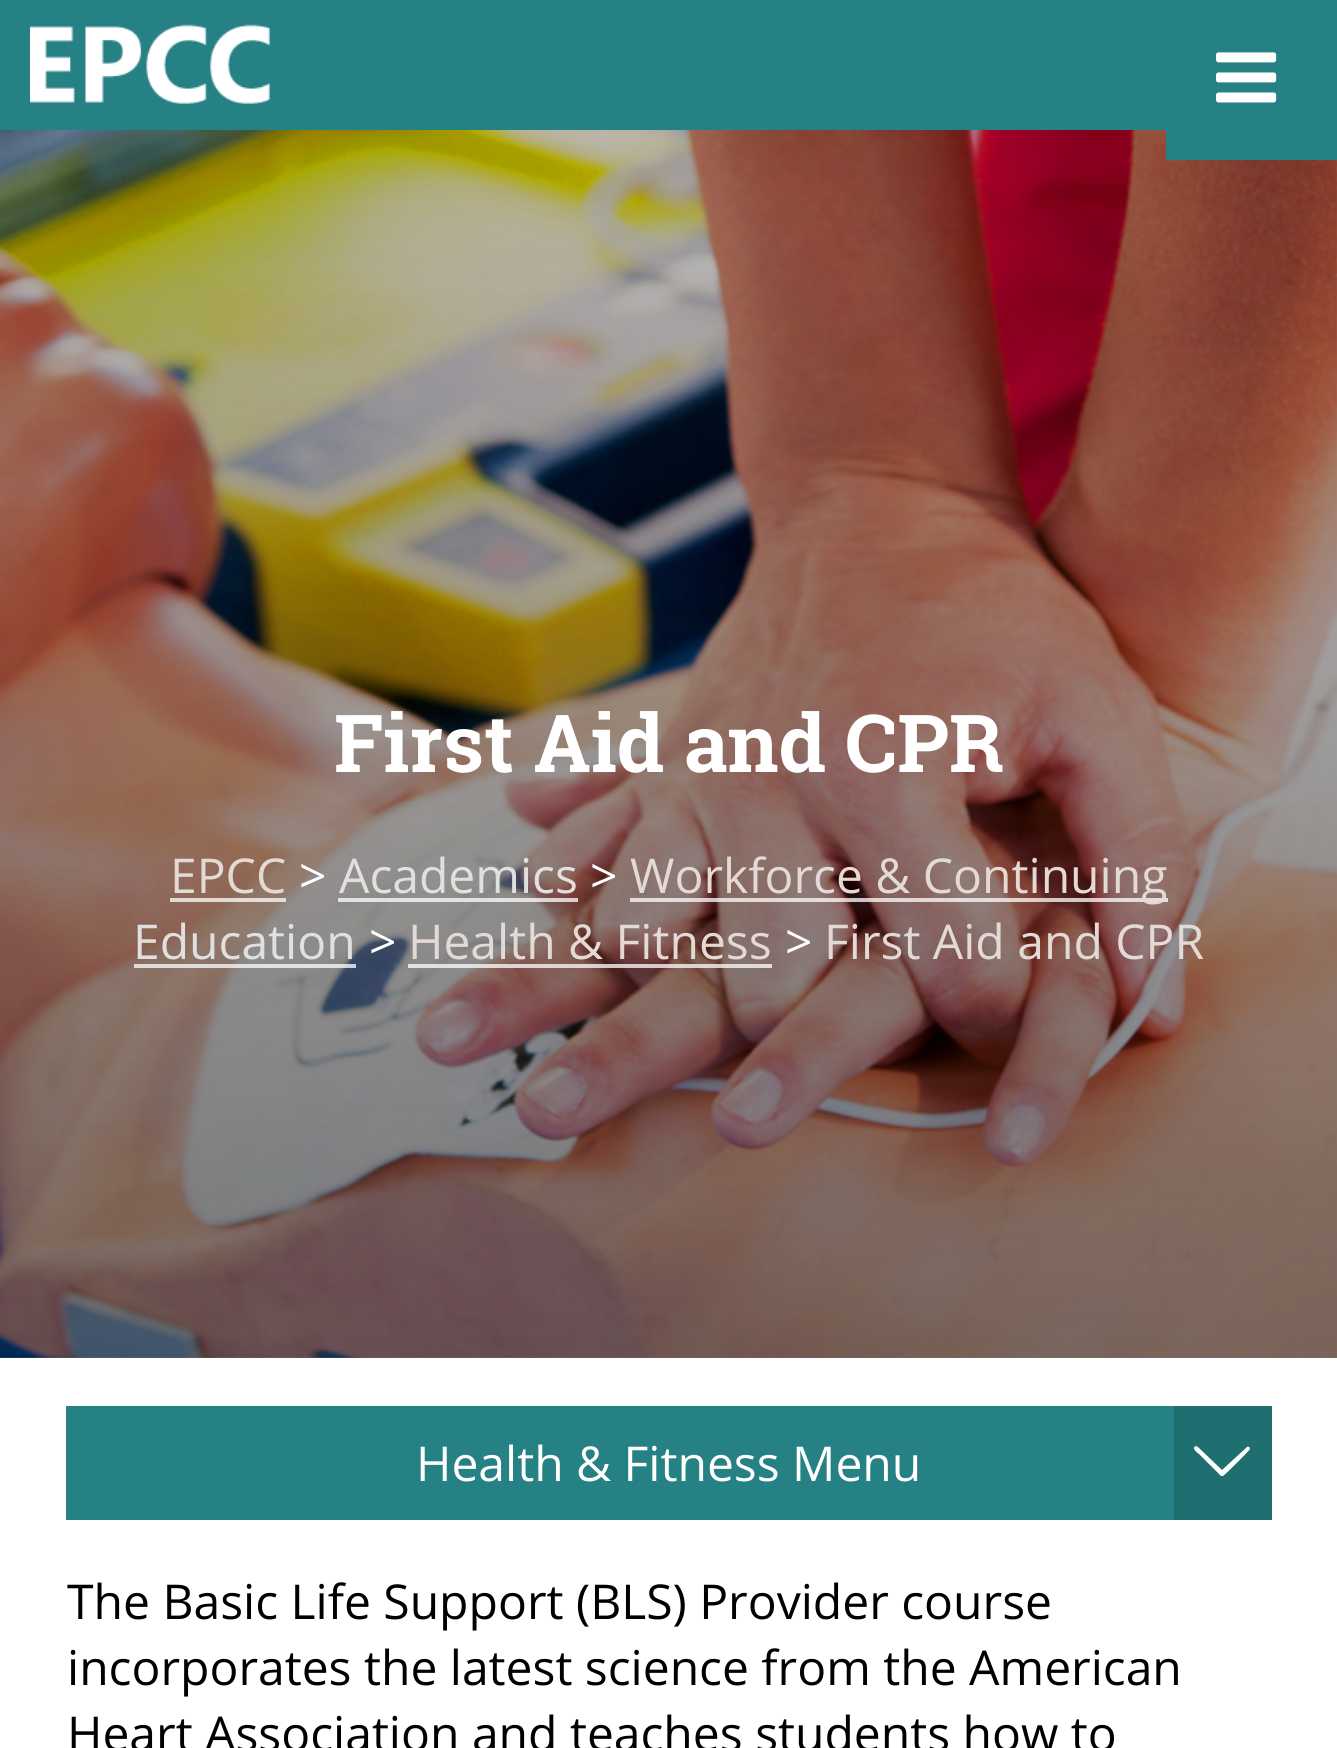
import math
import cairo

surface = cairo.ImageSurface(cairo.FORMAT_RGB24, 1337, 1748)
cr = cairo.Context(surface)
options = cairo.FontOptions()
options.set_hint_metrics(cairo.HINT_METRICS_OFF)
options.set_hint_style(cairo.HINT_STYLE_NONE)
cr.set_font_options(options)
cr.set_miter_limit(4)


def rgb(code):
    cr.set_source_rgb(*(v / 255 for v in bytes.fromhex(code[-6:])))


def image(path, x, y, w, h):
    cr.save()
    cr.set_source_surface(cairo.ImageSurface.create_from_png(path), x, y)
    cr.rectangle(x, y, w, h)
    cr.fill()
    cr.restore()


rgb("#ffffff")
cr.paint()
image("img/3.png", 0, 130, 1337, 1228)
gradient = cairo.LinearGradient(669, 0, 669, 1358)
gradient.add_color_stop_rgba(0, 0, 0, 0, 0.25)
gradient.add_color_stop_rgba(1, 0, 0, 0, 0.5)
cr.set_source(gradient)
cr.rectangle(0, 130, 1337, 1228)
cr.fill()
rgb("#258184")
cr.rectangle(1166, 0, 171, 160)
cr.fill()
image("img/1.png", 1216, 52, 61, 51)
cr.rectangle(0, 0, 1166, 130)
cr.fill()
image("img/2.png", 30, 24, 240, 80)
cr.set_source_rgba(1, 1, 1, 0.75)
cr.rectangle(170, 898, 116, 4)
cr.fill()
cr.rectangle(338, 898, 240, 4)
cr.fill()
cr.rectangle(630, 898, 538, 4)
cr.fill()
cr.rectangle(134, 964, 222, 4)
cr.fill()
cr.rectangle(408, 964, 364, 4)
cr.fill()
rgb("#258184")
cr.rectangle(66, 1406, 1108, 114)
cr.fill()
rgb("#1f6e70")
cr.rectangle(1174, 1406, 98, 114)
cr.fill()
rgb("#ffffff")
cr.new_path()
cr.move_to(1198, 1447)
cr.line_to(1222, 1470)
cr.line_to(1247, 1447)
cr.curve_to(1248, 1446, 1250, 1447, 1250, 1449)
cr.curve_to(1250, 1450, 1226, 1474, 1223, 1476)
cr.line_to(1221, 1476)
cr.line_to(1199, 1454)
cr.curve_to(1199, 1454, 1190, 1448, 1196, 1446)
cr.close_path()
cr.fill()
cr.select_font_face("Roboto Slab", cairo.FONT_SLANT_NORMAL, cairo.FONT_WEIGHT_BOLD)
cr.set_font_size(80)
cr.move_to(334, 772)
cr.show_text("First Aid and CPR")
cr.select_font_face("Open Sans")
cr.set_font_size(48)
rgb("#e3dad6")
cr.move_to(170, 893)
cr.show_text("EPCC")
rgb("#ffffff")
cr.move_to(299, 893)
cr.show_text(">")
rgb("#e2e0df")
cr.move_to(339, 893)
cr.show_text("Academics")
rgb("#ffffff")
cr.move_to(590, 893)
cr.show_text(">")
rgb("#e3dad6")
cr.move_to(630, 893)
cr.show_text("Workforce & Continuing")
rgb("#e2e0df")
cr.move_to(133, 959)
cr.show_text("Education")
rgb("#ffffff")
cr.move_to(369, 959)
cr.show_text(">")
rgb("#e3dad6")
cr.move_to(408, 959)
cr.show_text("Health & Fitness")
rgb("#ffffff")
cr.move_to(785, 959)
cr.show_text(">")
rgb("#e3dad6")
cr.move_to(824, 959)
cr.show_text("First Aid and CPR")
rgb("#ffffff")
cr.move_to(416, 1481)
cr.show_text("Health & Fitness Menu")
rgb("#000000")
for x, y, s in [
    (67, 1619, "The Basic Life Support (BLS) Provider course"),
    (67, 1685, "incorporates the latest science from the American"),
    (67, 1751, "Heart Association and teaches students how to"),
]:
    cr.move_to(x, y)
    cr.show_text(s)
surface.write_to_png("page.png")
